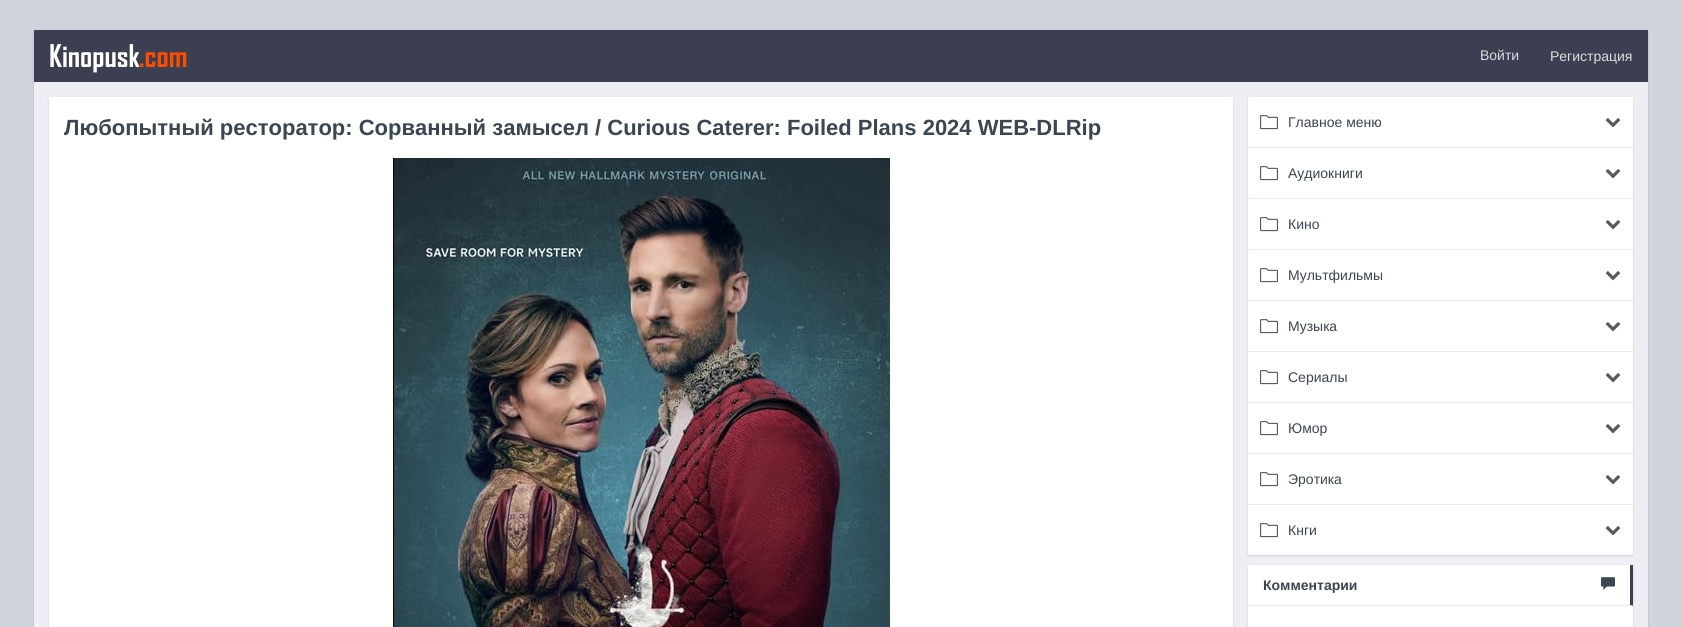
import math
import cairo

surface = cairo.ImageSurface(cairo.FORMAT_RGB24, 1682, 627)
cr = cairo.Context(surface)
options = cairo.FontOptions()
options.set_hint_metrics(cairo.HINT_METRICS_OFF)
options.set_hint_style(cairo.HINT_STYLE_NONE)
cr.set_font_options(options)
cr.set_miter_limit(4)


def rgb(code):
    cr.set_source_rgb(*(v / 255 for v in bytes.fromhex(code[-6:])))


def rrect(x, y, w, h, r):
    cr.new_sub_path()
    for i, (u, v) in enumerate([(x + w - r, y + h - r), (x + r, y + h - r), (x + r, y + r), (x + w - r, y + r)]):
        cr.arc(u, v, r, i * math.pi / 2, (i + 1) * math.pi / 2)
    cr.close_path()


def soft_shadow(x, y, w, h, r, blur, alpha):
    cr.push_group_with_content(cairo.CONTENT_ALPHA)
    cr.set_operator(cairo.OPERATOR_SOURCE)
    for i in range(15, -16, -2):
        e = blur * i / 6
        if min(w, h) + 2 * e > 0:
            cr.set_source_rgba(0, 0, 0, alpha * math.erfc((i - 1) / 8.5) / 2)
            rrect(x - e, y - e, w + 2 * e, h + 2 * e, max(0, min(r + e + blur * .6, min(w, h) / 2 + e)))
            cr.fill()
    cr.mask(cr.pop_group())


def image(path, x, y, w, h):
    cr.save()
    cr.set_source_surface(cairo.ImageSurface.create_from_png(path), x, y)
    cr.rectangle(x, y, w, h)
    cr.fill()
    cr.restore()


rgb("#d0d3dc")
cr.paint()
rgb("#000000")
soft_shadow(34, 31, 1614, 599, 0, 1, 0.15)
rgb("#edeff5")
cr.rectangle(34, 82, 1614, 545)
cr.fill()
rgb("#3b3f51")
cr.rectangle(34, 30, 1614, 52)
cr.fill()
rgb("#000000")
soft_shadow(49, 98, 1184, 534, 2, 1, 0.15)
rgb("#ffffff")
rrect(49, 97, 1184, 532, 2)
cr.fill()
image("img/1.png", 393, 158, 497, 469)
rgb("#000000")
soft_shadow(1248, 98, 385, 458, 1, 1, 0.15)
rgb("#ffffff")
rrect(1248, 97, 385, 458, 1)
cr.fill()
rgb("#e9ecf3")
cr.rectangle(1248, 147, 385, 1)
cr.fill()
image("img/2.png", 1260, 115, 18, 15)
image("img/3.png", 1605, 118, 16, 10)
cr.rectangle(1248, 198, 385, 1)
cr.fill()
image("img/2.png", 1260, 166, 18, 15)
image("img/3.png", 1605, 169, 16, 10)
cr.rectangle(1248, 249, 385, 1)
cr.fill()
image("img/2.png", 1260, 217, 18, 15)
image("img/3.png", 1605, 220, 16, 10)
cr.rectangle(1248, 300, 385, 1)
cr.fill()
image("img/2.png", 1260, 268, 18, 15)
image("img/3.png", 1605, 271, 16, 10)
cr.rectangle(1248, 351, 385, 1)
cr.fill()
image("img/2.png", 1260, 319, 18, 15)
image("img/3.png", 1605, 322, 16, 10)
cr.rectangle(1248, 402, 385, 1)
cr.fill()
image("img/2.png", 1260, 370, 18, 15)
image("img/3.png", 1605, 373, 16, 10)
cr.rectangle(1248, 453, 385, 1)
cr.fill()
image("img/2.png", 1260, 421, 18, 15)
image("img/3.png", 1605, 424, 16, 10)
cr.rectangle(1248, 504, 385, 1)
cr.fill()
image("img/2.png", 1260, 472, 18, 15)
image("img/3.png", 1605, 475, 16, 10)
image("img/2.png", 1260, 523, 18, 15)
image("img/3.png", 1605, 526, 16, 10)
rgb("#000000")
soft_shadow(1248, 566, 385, 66, 2, 1, 0.15)
rgb("#ffffff")
cr.rectangle(1248, 565, 385, 62)
cr.fill()
rgb("#3b3f51")
cr.new_path()
cr.move_to(1633, 565)
cr.line_to(1633, 606)
cr.line_to(1630, 605)
cr.line_to(1630, 565)
cr.close_path()
cr.fill()
rgb("#e9ecf3")
cr.new_path()
cr.move_to(1633, 606)
cr.line_to(1248, 606)
cr.line_to(1248, 605)
cr.line_to(1630, 605)
cr.close_path()
cr.fill()
image("img/4.png", 1601, 577, 14, 13)
cr.select_font_face("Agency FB", cairo.FONT_SLANT_NORMAL, cairo.FONT_WEIGHT_BOLD)
cr.set_font_size(30)
rgb("#ffffff")
cr.move_to(49, 67)
cr.show_text("Kinopusk")
rgb("#ff4d00")
cr.move_to(139, 67)
cr.show_text(".com")
cr.select_font_face("Liberation Sans")
cr.set_font_size(14)
rgb("#dddddd")
cr.move_to(1480, 60)
cr.show_text("Войти")
cr.move_to(1550, 61)
cr.show_text("Регистрация")
cr.select_font_face("Liberation Sans", cairo.FONT_SLANT_NORMAL, cairo.FONT_WEIGHT_BOLD)
cr.set_font_size(22)
rgb("#3a4651")
cr.move_to(64, 135)
cr.show_text("Любопытный ресторатор: Сорванный замысел / Curious Caterer: Foiled Plans 2024 WEB-DLRip")
cr.select_font_face("Liberation Sans")
cr.set_font_size(14)
for x, y, s in [
    (1288, 127, "Главное меню"),
    (1288, 178, "Аудиокниги"),
    (1288, 229, "Кино"),
    (1288, 280, "Мультфильмы"),
    (1288, 331, "Музыка"),
    (1288, 382, "Сериалы"),
    (1288, 433, "Юмор"),
    (1288, 484, "Эротика"),
    (1288, 535, "Кнги"),
]:
    cr.move_to(x, y)
    cr.show_text(s)
cr.select_font_face("Liberation Sans", cairo.FONT_SLANT_NORMAL, cairo.FONT_WEIGHT_BOLD)
cr.move_to(1263, 590)
cr.show_text("Комментарии")
surface.write_to_png("page.png")
